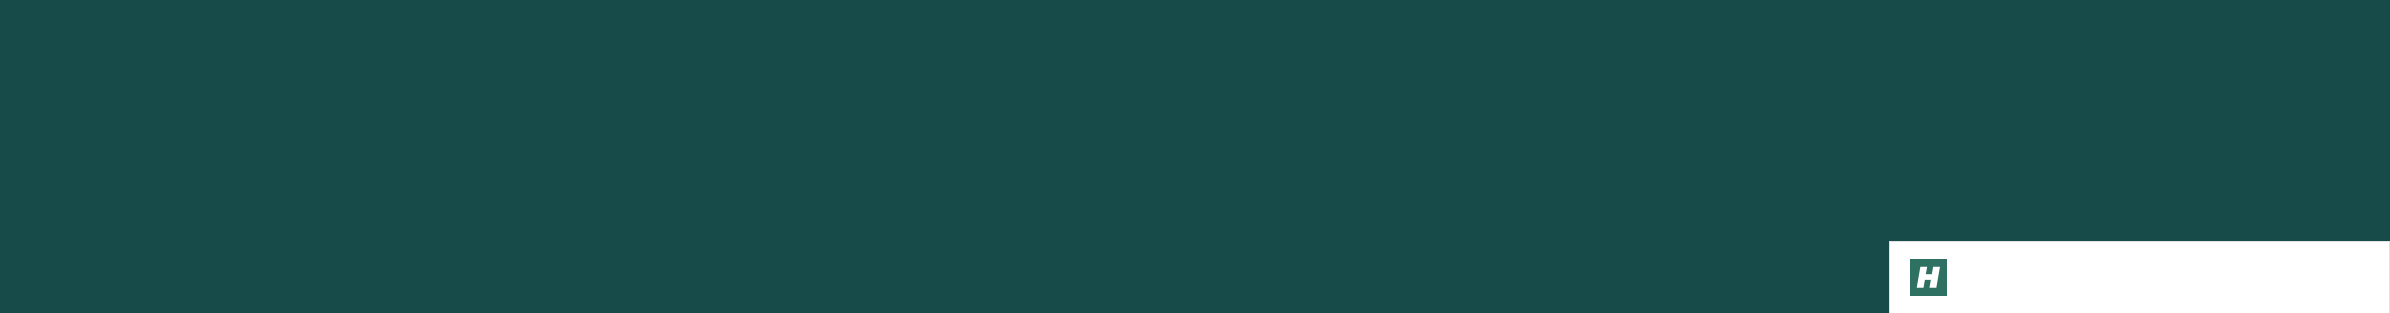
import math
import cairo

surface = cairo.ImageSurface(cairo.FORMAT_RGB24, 2390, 313)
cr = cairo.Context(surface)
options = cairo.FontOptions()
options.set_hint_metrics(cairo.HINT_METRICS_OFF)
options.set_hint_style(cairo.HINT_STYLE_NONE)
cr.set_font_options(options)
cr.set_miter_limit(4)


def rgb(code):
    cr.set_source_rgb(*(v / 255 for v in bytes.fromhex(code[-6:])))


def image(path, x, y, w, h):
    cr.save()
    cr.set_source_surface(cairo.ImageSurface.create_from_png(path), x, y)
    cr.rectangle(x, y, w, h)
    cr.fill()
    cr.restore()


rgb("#164b49")
cr.paint()
rgb("#ffffff")
cr.rectangle(1889.5, 241.5, 500, 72)
cr.fill_preserve()
rgb("#e1e1e1")
cr.set_line_width(1)
cr.stroke()
image("img/1.png", 1910, 259, 37, 37)
surface.write_to_png("page.png")
